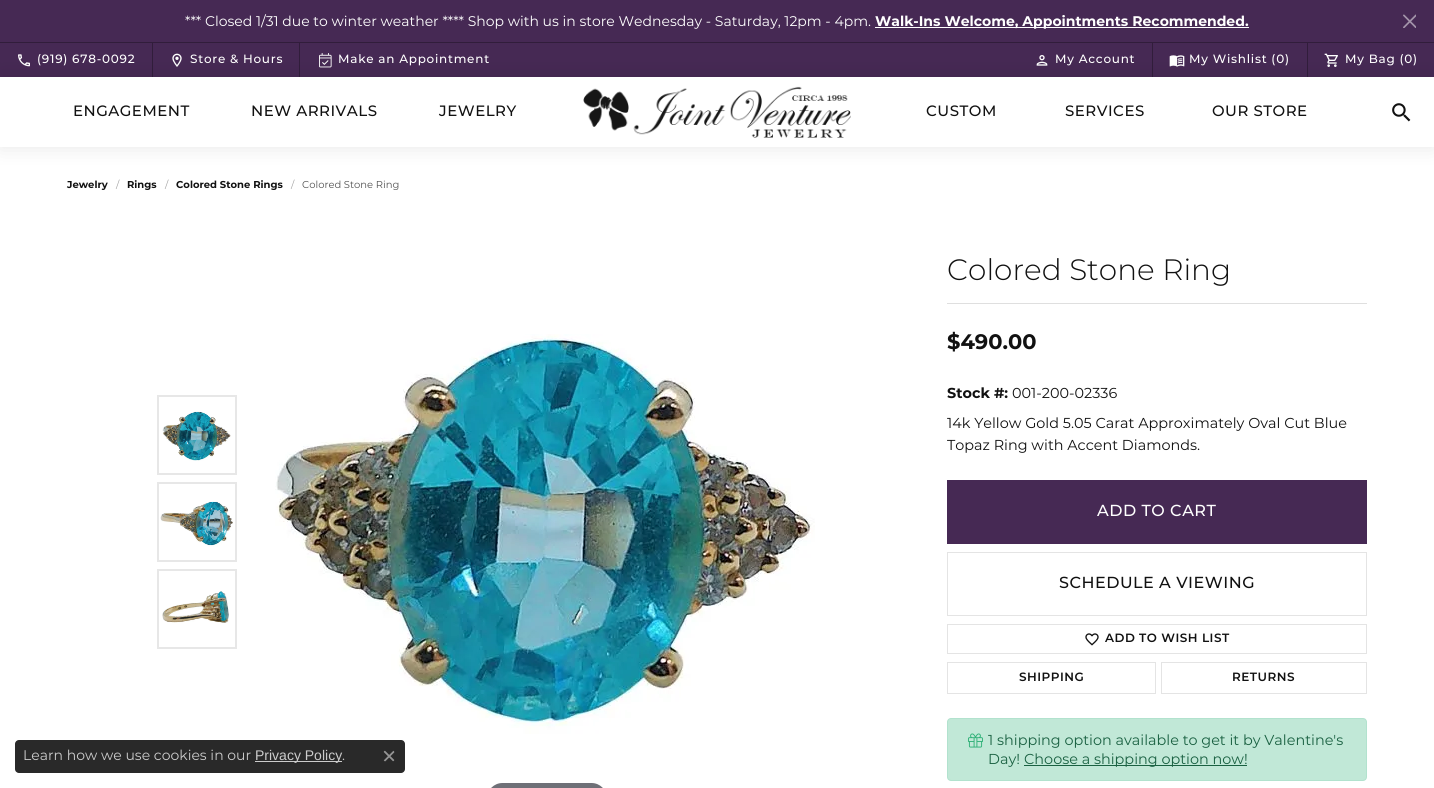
import math
import cairo

surface = cairo.ImageSurface(cairo.FORMAT_RGB24, 1434, 788)
cr = cairo.Context(surface)
options = cairo.FontOptions()
options.set_hint_metrics(cairo.HINT_METRICS_OFF)
options.set_hint_style(cairo.HINT_STYLE_NONE)
cr.set_font_options(options)
cr.set_miter_limit(4)


def rgb(code):
    cr.set_source_rgb(*(v / 255 for v in bytes.fromhex(code[-6:])))


def tracked(x, y, s, letter, word):
    cr.move_to(x, y)
    for ch in s:
        cr.show_text(ch)
        cr.rel_move_to(letter + word * (ch == ' '), 0)


def rrect(x, y, w, h, r):
    cr.new_sub_path()
    for i, (u, v) in enumerate([(x + w - r, y + h - r), (x + r, y + h - r), (x + r, y + r), (x + w - r, y + r)]):
        cr.arc(u, v, r, i * math.pi / 2, (i + 1) * math.pi / 2)
    cr.close_path()


def soft_shadow(x, y, w, h, r, blur, alpha):
    cr.push_group_with_content(cairo.CONTENT_ALPHA)
    cr.set_operator(cairo.OPERATOR_SOURCE)
    for i in range(15, -16, -2):
        e = blur * i / 6
        if min(w, h) + 2 * e > 0:
            cr.set_source_rgba(0, 0, 0, alpha * math.erfc((i - 1) / 8.5) / 2)
            rrect(x - e, y - e, w + 2 * e, h + 2 * e, max(0, min(r + e + blur * .6, min(w, h) / 2 + e)))
            cr.fill()
    cr.mask(cr.pop_group())


def image(path, x, y, w, h):
    cr.save()
    cr.set_source_surface(cairo.ImageSurface.create_from_png(path), x, y)
    cr.rectangle(x, y, w, h)
    cr.fill()
    cr.restore()


rgb("#ffffff")
cr.paint()
rgb("#462954")
cr.rectangle(0, 0, 1434, 42)
cr.fill()
rgb("#ffffff")
cr.rectangle(875, 27, 374, 1)
cr.fill()
image("img/1.png", 1403, 14, 13, 14)
rgb("#462954")
cr.rectangle(0, 43, 1434, 34)
cr.fill()
rgb("#311d3b")
cr.rectangle(0, 42, 1434, 1)
cr.fill()
image("img/2.png", 18, 54, 12, 13)
cr.rectangle(152, 43, 1, 34)
cr.fill()
image("img/3.png", 172, 53, 10, 14)
cr.rectangle(299, 43, 1, 34)
cr.fill()
image("img/4.png", 319, 53, 13, 15)
image("img/5.png", 1036, 55, 12, 11)
cr.rectangle(1152, 43, 1, 34)
cr.fill()
image("img/6.png", 1169, 55, 16, 12)
cr.rectangle(1307, 43, 1, 34)
cr.fill()
image("img/7.png", 1324, 53, 14, 14)
cr.save()
cr.set_fill_rule(cairo.FILL_RULE_EVEN_ODD)
cr.new_path()
cr.move_to(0, 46)
cr.line_to(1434, 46)
cr.line_to(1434, 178)
cr.line_to(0, 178)
cr.close_path()
cr.move_to(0, 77)
cr.line_to(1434, 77)
cr.line_to(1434, 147)
cr.line_to(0, 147)
cr.close_path()
cr.clip()
rgb("#000000")
soft_shadow(0, 77, 1434, 70, 0, 10, 0.1)
cr.restore()
image("img/8.png", 583, 86, 268, 52)
image("img/9.png", 1392, 103, 19, 19)
cr.rectangle(158, 396, 78, 78)
rgb("#e7e7e7")
cr.stroke()
image("img/10.png", 162, 411, 69, 50)
cr.rectangle(158, 483, 78, 78)
cr.stroke()
image("img/11.png", 160, 501, 73, 46)
cr.rectangle(158, 570, 78, 78)
cr.stroke()
image("img/12.png", 162, 591, 67, 32)
image("img/13.png", 275, 334, 540, 400)
rgb("#6f7077")
rrect(487, 783, 120, 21, 15.5)
cr.fill()
rgb("#dfdfdf")
cr.rectangle(947, 303, 420, 1)
cr.fill()
rgb("#462954")
cr.rectangle(947, 480, 420, 64)
cr.fill()
cr.rectangle(947.5, 552.5, 419, 63)
rgb("#e4e4e4")
cr.set_line_width(1)
cr.stroke()
cr.rectangle(947.5, 624.5, 419, 29)
cr.stroke()
image("img/14.png", 1085, 633, 14, 13)
cr.rectangle(947.5, 662.5, 208, 31)
cr.stroke()
cr.rectangle(1161.5, 662.5, 205, 31)
cr.stroke()
rgb("#c1e8d7")
rrect(947, 718, 420, 63, 4)
cr.fill()
rrect(947.5, 718.5, 419, 62, 3.5)
cr.set_source_rgba(0.188, 0.694, 0.471, 0.1)
cr.stroke()
image("img/15.png", 968, 733, 15, 15)
rgb("#1a6142")
cr.rectangle(1024, 765, 223, 1)
cr.fill()
rgb("#292929")
rrect(15, 740, 390, 33, 4)
cr.fill()
rgb("#cccccc")
cr.rectangle(255, 761, 87, 1)
cr.fill()
image("img/16.png", 383, 750, 12, 12)
cr.select_font_face("Montserrat")
cr.set_font_size(14)
rgb("#ffffff")
cr.move_to(185, 26)
cr.show_text("*** Closed 1/31 due to winter weather **** Shop with us in store Wednesday - Saturday, 12pm - 4pm.")
cr.select_font_face("Montserrat", cairo.FONT_SLANT_NORMAL, cairo.FONT_WEIGHT_BOLD)
cr.move_to(875, 26)
cr.show_text("Walk-Ins Welcome, Appointments Recommended.")
cr.select_font_face("Montserrat Medium")
cr.set_font_size(12)
for x, y, s in [
    (37, 63, "(919) 678-0092"),
    (190, 63, "Store & Hours"),
    (338, 63, "Make an Appointment"),
    (1055, 63, "My Account"),
    (1189, 63, "My Wishlist (0)"),
    (1345, 63, "My Bag (0)"),
]:
    tracked(x, y, s, 0.75, 0)
cr.set_font_size(15)
rgb("#111111")
for x, y, s in [
    (73, 116, "ENGAGEMENT"),
    (251, 116, "NEW ARRIVALS"),
    (439, 116, "JEWELRY"),
    (926, 116, "CUSTOM"),
    (1065, 116, "SERVICES"),
    (1212, 116, "OUR STORE"),
]:
    tracked(x, y, s, 0.5, 0)
cr.select_font_face("Montserrat", cairo.FONT_SLANT_NORMAL, cairo.FONT_WEIGHT_BOLD)
cr.set_font_size(10)
cr.move_to(67, 188)
cr.show_text("Jewelry")
cr.select_font_face("Montserrat")
rgb("#a3a3a3")
cr.move_to(116, 188)
cr.show_text("/")
cr.select_font_face("Montserrat", cairo.FONT_SLANT_NORMAL, cairo.FONT_WEIGHT_BOLD)
rgb("#111111")
cr.move_to(127, 188)
cr.show_text("Rings")
cr.select_font_face("Montserrat")
rgb("#a3a3a3")
cr.move_to(165, 188)
cr.show_text("/")
cr.select_font_face("Montserrat", cairo.FONT_SLANT_NORMAL, cairo.FONT_WEIGHT_BOLD)
rgb("#111111")
cr.move_to(176, 188)
cr.show_text("Colored Stone Rings")
cr.select_font_face("Montserrat")
rgb("#a3a3a3")
cr.move_to(291, 188)
cr.show_text("/")
rgb("#515151")
cr.move_to(302, 188)
cr.show_text("Colored Stone Ring")
cr.select_font_face("Montserrat Light")
cr.set_font_size(29.5)
rgb("#111111")
cr.move_to(947, 280)
cr.show_text("Colored Stone Ring")
cr.select_font_face("Montserrat", cairo.FONT_SLANT_NORMAL, cairo.FONT_WEIGHT_BOLD)
cr.set_font_size(21)
cr.move_to(947, 349)
cr.show_text("$490.00")
cr.set_font_size(14.4)
cr.move_to(947, 398)
cr.show_text("Stock #:")
cr.select_font_face("Montserrat")
for x, y, s in [
    (1012, 398, "001-200-02336"),
    (947, 428, "14k Yellow Gold 5.05 Carat Approximately Oval Cut Blue"),
    (947, 450, "Topaz Ring with Accent Diamonds."),
]:
    cr.move_to(x, y)
    cr.show_text(s)
cr.select_font_face("Montserrat Medium")
cr.set_font_size(16)
rgb("#ffffff")
tracked(1097, 516, "ADD TO CART", 0.5, 0)
rgb("#111111")
tracked(1059, 588, "SCHEDULE A VIEWING", 0.5, 0)
cr.select_font_face("Montserrat SemiBold")
cr.set_font_size(12)
for x, y, s in [
    (1105, 642, "ADD TO WISH LIST"),
    (1019, 681, "SHIPPING"),
    (1232, 681, "RETURNS"),
]:
    tracked(x, y, s, 0.5, 0)
cr.select_font_face("Montserrat")
cr.set_font_size(14.4)
rgb("#1a6142")
for x, y, s in [
    (988, 745, "1 shipping option available to get it by Valentine's"),
    (988, 764, "Day!"),
    (1024, 764, "Choose a shipping option now!"),
]:
    cr.move_to(x, y)
    cr.show_text(s)
cr.set_font_size(14)
rgb("#cccccc")
cr.move_to(23, 760)
cr.show_text("Learn how we use cookies in our")
cr.select_font_face("Liberation Sans")
cr.move_to(255, 760)
cr.show_text("Privacy Policy")
cr.select_font_face("Montserrat")
cr.move_to(342, 760)
cr.show_text(".")
surface.write_to_png("page.png")
